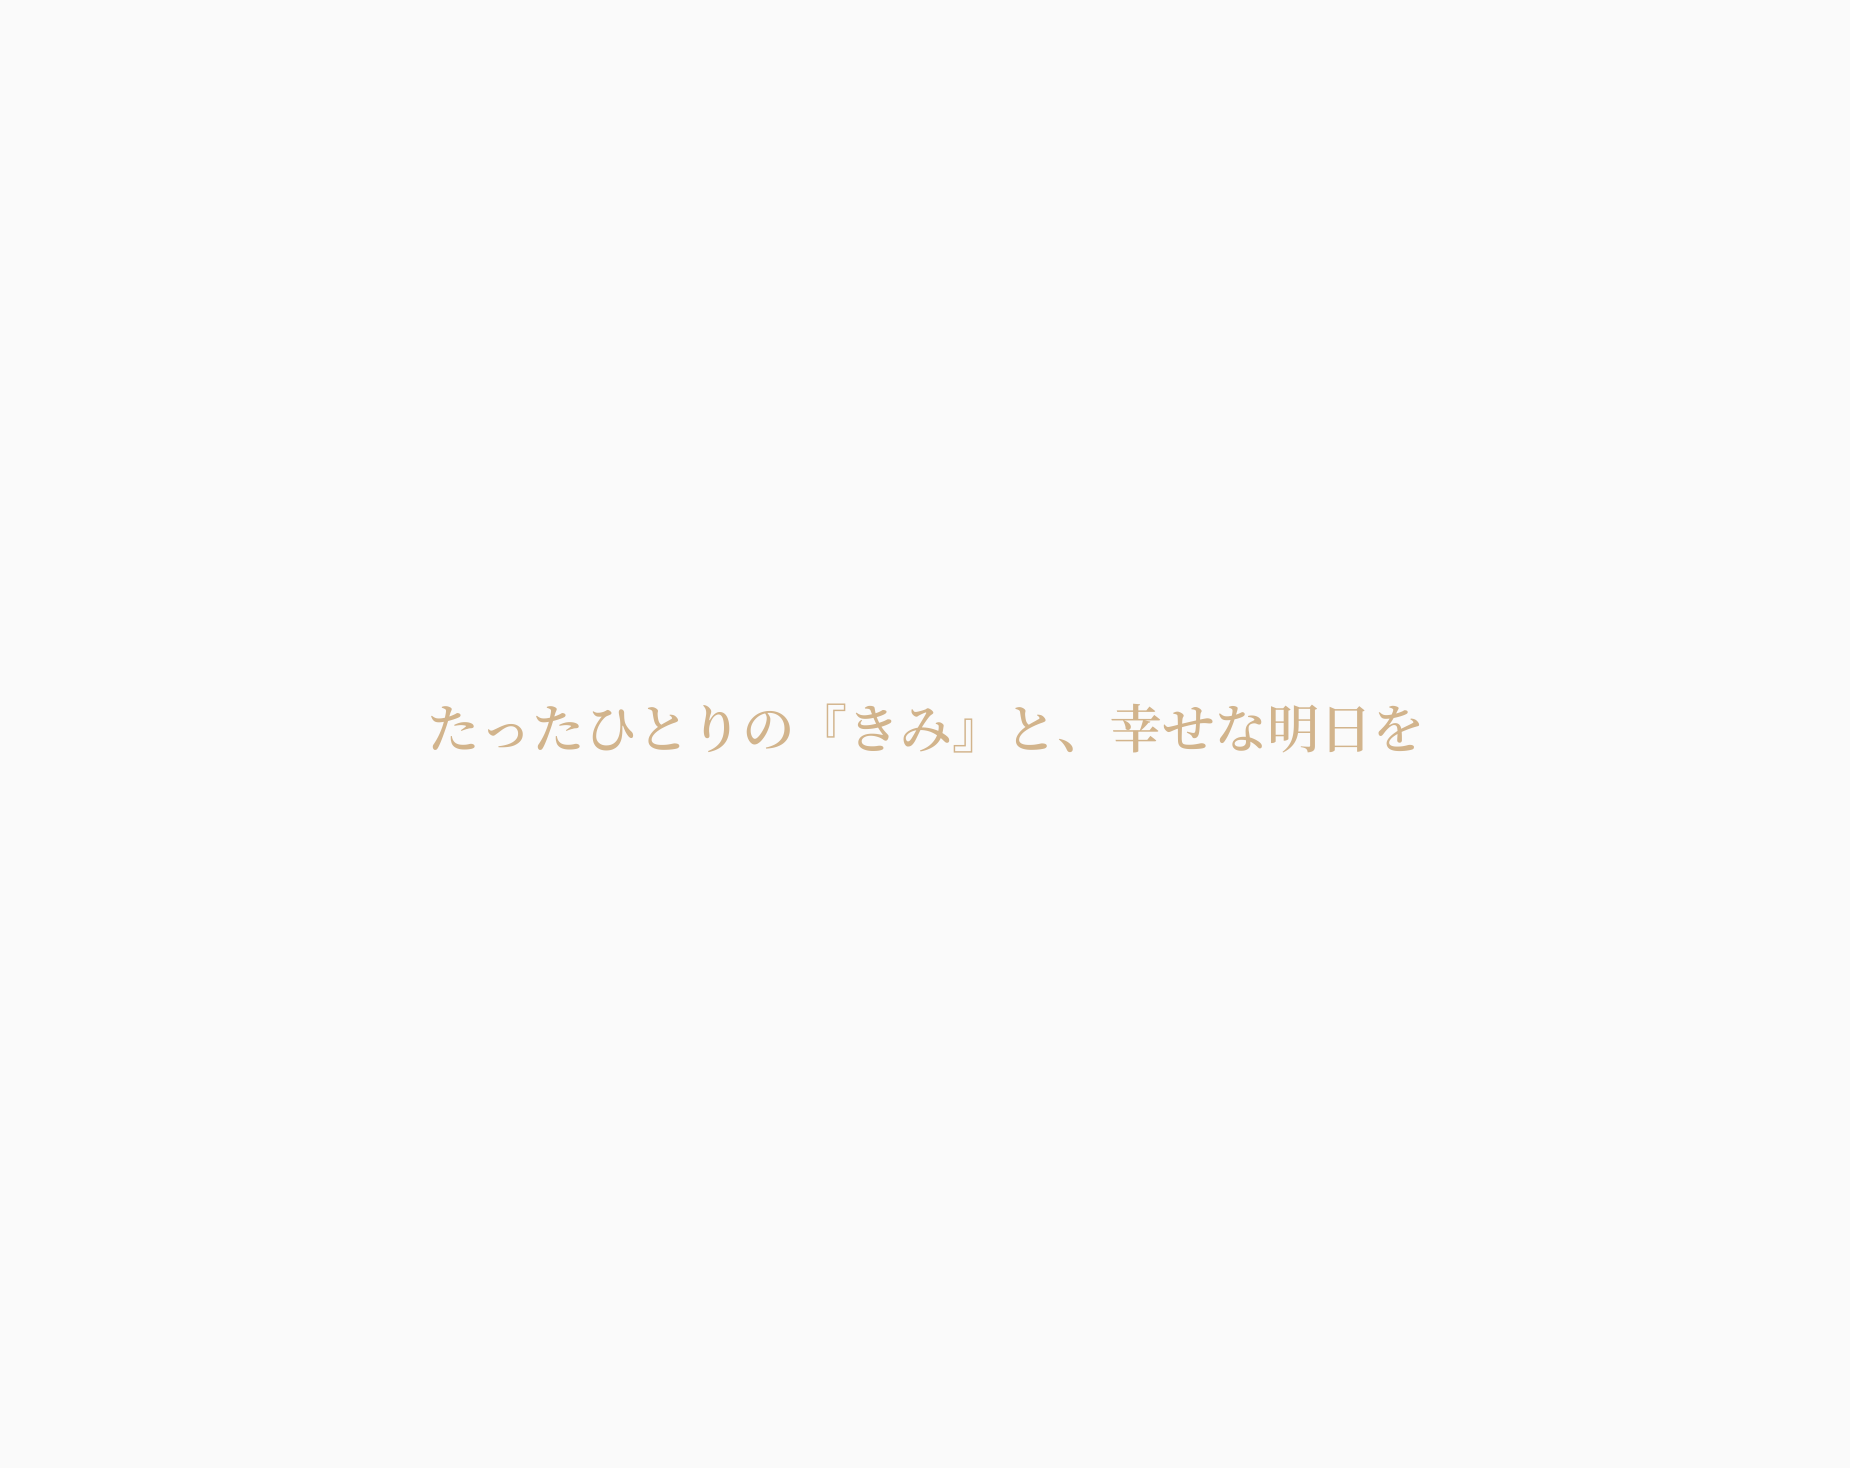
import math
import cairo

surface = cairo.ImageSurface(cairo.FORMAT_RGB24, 1850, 1468)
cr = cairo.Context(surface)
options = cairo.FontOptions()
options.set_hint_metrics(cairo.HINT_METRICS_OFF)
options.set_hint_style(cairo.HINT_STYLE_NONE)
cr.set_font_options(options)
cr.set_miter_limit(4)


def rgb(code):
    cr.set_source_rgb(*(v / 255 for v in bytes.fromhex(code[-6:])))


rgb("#fafafa")
cr.paint()
cr.select_font_face("Noto Serif JP SemiBold")
cr.set_font_size(52.5)
rgb("#d2b48c")
cr.move_to(427, 748)
cr.show_text("たったひとりの『きみ』と、幸せな明日を")
surface.write_to_png("page.png")
